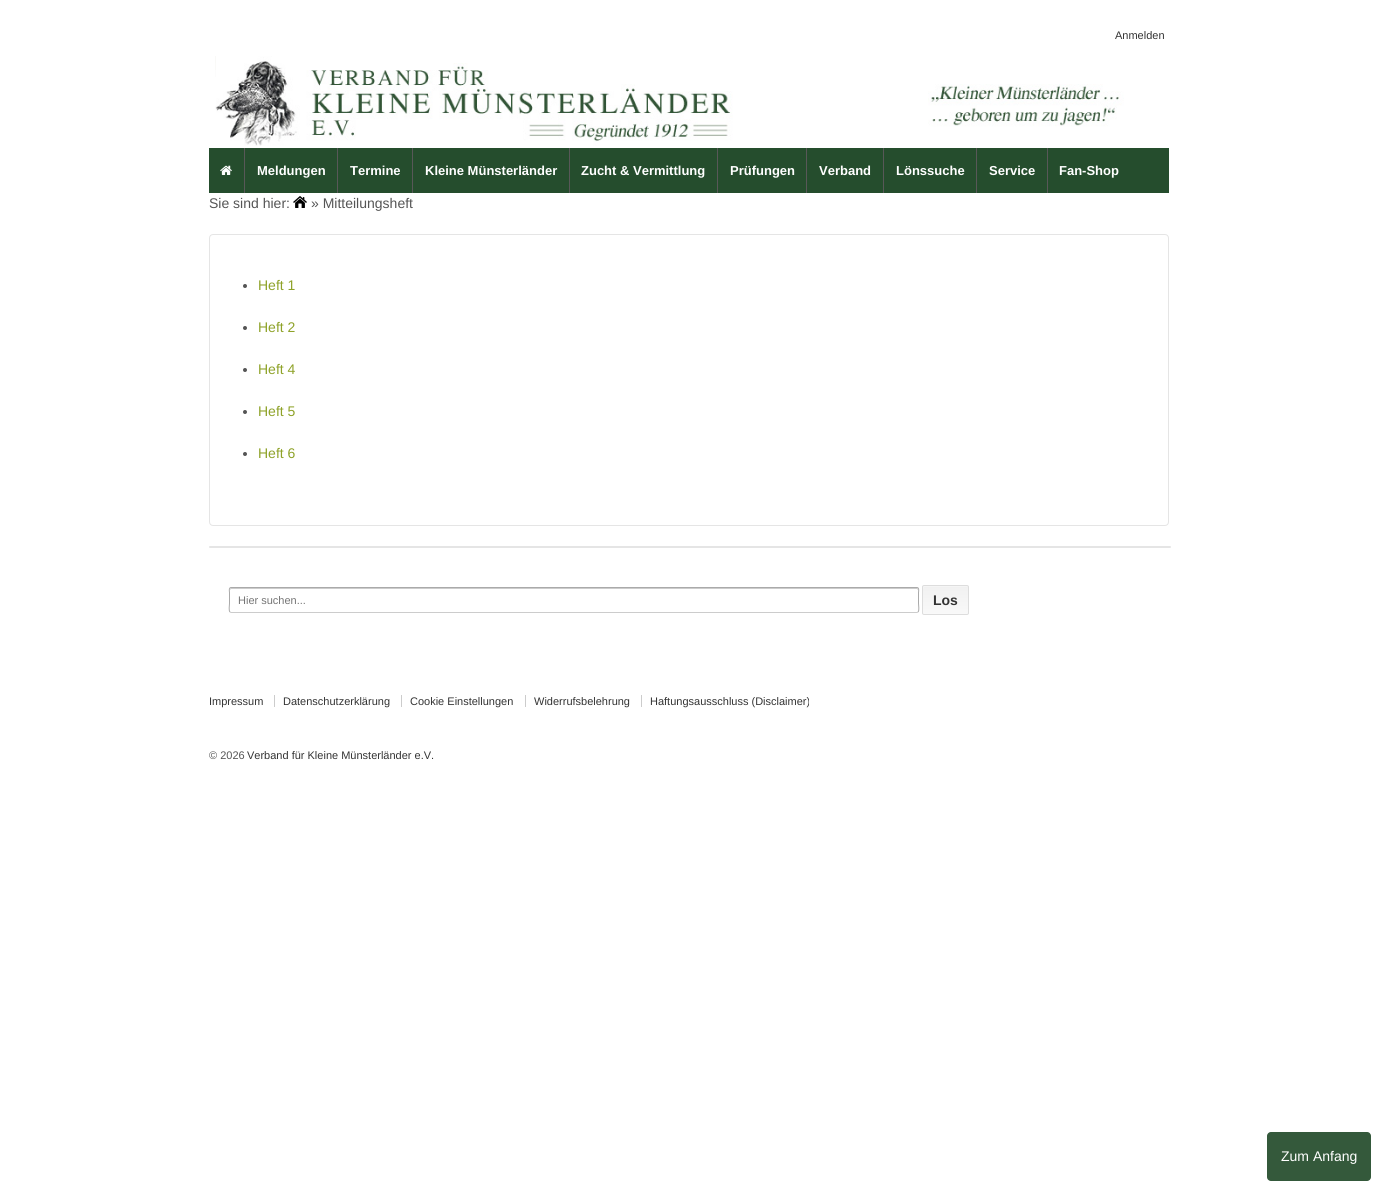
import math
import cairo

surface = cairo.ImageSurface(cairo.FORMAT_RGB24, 1391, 1201)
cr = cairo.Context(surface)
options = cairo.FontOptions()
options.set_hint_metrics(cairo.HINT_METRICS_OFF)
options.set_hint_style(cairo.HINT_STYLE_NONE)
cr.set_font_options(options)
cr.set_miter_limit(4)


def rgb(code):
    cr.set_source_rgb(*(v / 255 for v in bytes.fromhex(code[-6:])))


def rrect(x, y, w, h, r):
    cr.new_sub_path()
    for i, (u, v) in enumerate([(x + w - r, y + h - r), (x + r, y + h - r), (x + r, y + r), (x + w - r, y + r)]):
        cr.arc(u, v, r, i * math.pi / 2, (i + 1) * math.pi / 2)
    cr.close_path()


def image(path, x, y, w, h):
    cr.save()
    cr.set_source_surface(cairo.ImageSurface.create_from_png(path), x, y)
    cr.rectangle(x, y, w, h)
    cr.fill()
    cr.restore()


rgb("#ffffff")
cr.paint()
image("img/1.png", 215, 56, 909, 90)
rgb("#254d2d")
cr.rectangle(209, 148, 960, 45)
cr.fill()
image("img/2.png", 220, 165, 12, 10)
for x, y, w, h, color in [
    (244, 148, 1, 45, "#585858"),
    (337, 148, 1, 45, "#585858"),
    (412, 148, 1, 45, "#585858"),
    (569, 148, 1, 45, "#585858"),
    (717, 148, 1, 45, "#585858"),
    (806, 148, 1, 45, "#585858"),
    (883, 148, 1, 45, "#585858"),
    (976, 148, 1, 45, "#585858"),
    (1047, 148, 1, 45, "#585858"),
]:
    rgb(color)
    cr.rectangle(x, y, w, h)
    cr.fill()
image("img/3.png", 293, 196, 14, 12)
rrect(209.5, 234.5, 959, 291, 3.5)
rgb("#e5e5e5")
cr.set_line_width(1)
cr.stroke()
rgb("#555555")
cr.arc(245, 286, 2, 0, 2 * math.pi)
cr.fill()
cr.arc(245, 328, 2, 0, 2 * math.pi)
cr.fill()
cr.arc(245, 370, 2, 0, 2 * math.pi)
cr.fill()
cr.arc(245, 412, 2, 0, 2 * math.pi)
cr.fill()
cr.arc(245, 454, 2, 0, 2 * math.pi)
cr.fill()
rgb("#e5e5e5")
rrect(209, 546, 962, 2, 1)
cr.fill()
rgb("#cccccc")
cr.set_fill_rule(cairo.FILL_RULE_EVEN_ODD)
cr.new_path()
cr.move_to(231, 589)
cr.line_to(917, 589)
cr.line_to(918, 590)
cr.curve_to(918, 589, 918, 588, 917, 588)
cr.line_to(231, 588)
cr.curve_to(230, 588, 230, 589, 230, 590)
cr.close_path()
cr.move_to(918, 611)
cr.line_to(918, 612)
cr.close_path()
cr.move_to(230, 611)
cr.line_to(230, 611)
cr.close_path()
cr.fill()
cr.new_path()
cr.move_to(918, 612)
cr.line_to(917, 612.5)
cr.line_to(231, 612.5)
cr.line_to(230, 612)
cr.stroke()
cr.new_path()
cr.move_to(230, 612)
cr.curve_to(228.5, 610.5, 229.5, 605.5, 229.5, 603.5)
cr.line_to(229.5, 592.5)
cr.curve_to(229.5, 592, 228.5, 587.5, 231, 587.5)
cr.line_to(917, 587.5)
cr.curve_to(919.5, 587.5, 918.5, 592, 918.5, 592.5)
cr.line_to(918.5, 603.5)
cr.curve_to(918.5, 605.5, 919.5, 610.5, 918, 612)
rgb("#aaaaaa")
cr.stroke()
cr.save()
cr.set_fill_rule(cairo.FILL_RULE_WINDING)
rrect(922, 585, 47, 30, 2)
cr.clip()
gradient = cairo.LinearGradient(946, 614, 946, 586)
gradient.add_color_stop_rgba(0, 0.976, 0.976, 0.976, 1)
gradient.add_color_stop_rgba(1, 0.945, 0.945, 0.945, 1)
cr.set_source(gradient)
cr.rectangle(922, 586, 47, 28)
cr.fill()
cr.restore()
rgb("#f5f5f5")
cr.new_path()
cr.move_to(924, 587)
cr.line_to(967, 587)
cr.curve_to(968, 587, 968, 588, 968, 589)
cr.curve_to(968, 584, 966, 586, 960, 586)
cr.line_to(931, 586)
cr.curve_to(924, 586, 923, 584, 923, 589)
cr.close_path()
cr.move_to(968, 613)
cr.line_to(968, 614)
cr.close_path()
cr.fill()
rrect(922.5, 585.5, 46, 29, 1.5)
rgb("#dddddd")
cr.stroke()
for x, y, w, h, color in [
    (274, 695, 1, 12, "#cccccc"),
    (401, 695, 1, 12, "#cccccc"),
    (525, 695, 1, 12, "#cccccc"),
    (641, 695, 1, 12, "#cccccc"),
]:
    rgb(color)
    cr.rectangle(x, y, w, h)
    cr.fill()
rgb("#34593b")
rrect(1267, 1132, 104, 49, 4)
cr.fill()
cr.select_font_face("Liberation Sans")
cr.set_font_size(11)
rgb("#333333")
cr.move_to(1115, 39)
cr.show_text("Anmelden")
cr.select_font_face("Liberation Sans", cairo.FONT_SLANT_NORMAL, cairo.FONT_WEIGHT_BOLD)
cr.set_font_size(13)
rgb("#ffffff")
for x, y, s in [
    (257, 175, "Meldungen"),
    (350, 175, "Termine"),
    (425, 175, "Kleine Münsterländer"),
    (581, 175, "Zucht & Vermittlung"),
    (730, 175, "Prüfungen"),
    (819, 175, "Verband"),
    (896, 175, "Lönssuche"),
    (989, 175, "Service"),
    (1059, 175, "Fan-Shop"),
]:
    cr.move_to(x, y)
    cr.show_text(s)
cr.select_font_face("Liberation Sans")
cr.set_font_size(14)
rgb("#555555")
cr.move_to(209, 208)
cr.show_text("Sie sind hier:")
cr.move_to(311, 208)
cr.show_text("» Mitteilungsheft")
rgb("#8ea228")
for x, y, s in [
    (258, 290, "Heft 1"),
    (258, 332, "Heft 2"),
    (258, 374, "Heft 4"),
    (258, 416, "Heft 5"),
    (258, 458, "Heft 6"),
]:
    cr.move_to(x, y)
    cr.show_text(s)
cr.set_font_size(11)
rgb("#757575")
cr.move_to(238, 604)
cr.show_text("Hier suchen...")
cr.select_font_face("Liberation Sans", cairo.FONT_SLANT_NORMAL, cairo.FONT_WEIGHT_BOLD)
cr.set_font_size(14)
rgb("#333333")
cr.move_to(933, 605)
cr.show_text("Los")
cr.select_font_face("Liberation Sans")
cr.set_font_size(11)
for x, y, s in [
    (209, 705, "Impressum"),
    (283, 705, "Datenschutzerklärung"),
    (410, 705, "Cookie Einstellungen"),
    (534, 705, "Widerrufsbelehrung"),
    (650, 705, "Haftungsausschluss (Disclaimer)"),
]:
    cr.move_to(x, y)
    cr.show_text(s)
rgb("#555555")
cr.move_to(209, 759)
cr.show_text("© 2026")
rgb("#333333")
cr.move_to(247, 759)
cr.show_text("Verband für Kleine Münsterländer e.V.")
cr.set_font_size(14)
rgb("#ffffff")
cr.move_to(1281, 1161)
cr.show_text("Zum Anfang")
surface.write_to_png("page.png")
